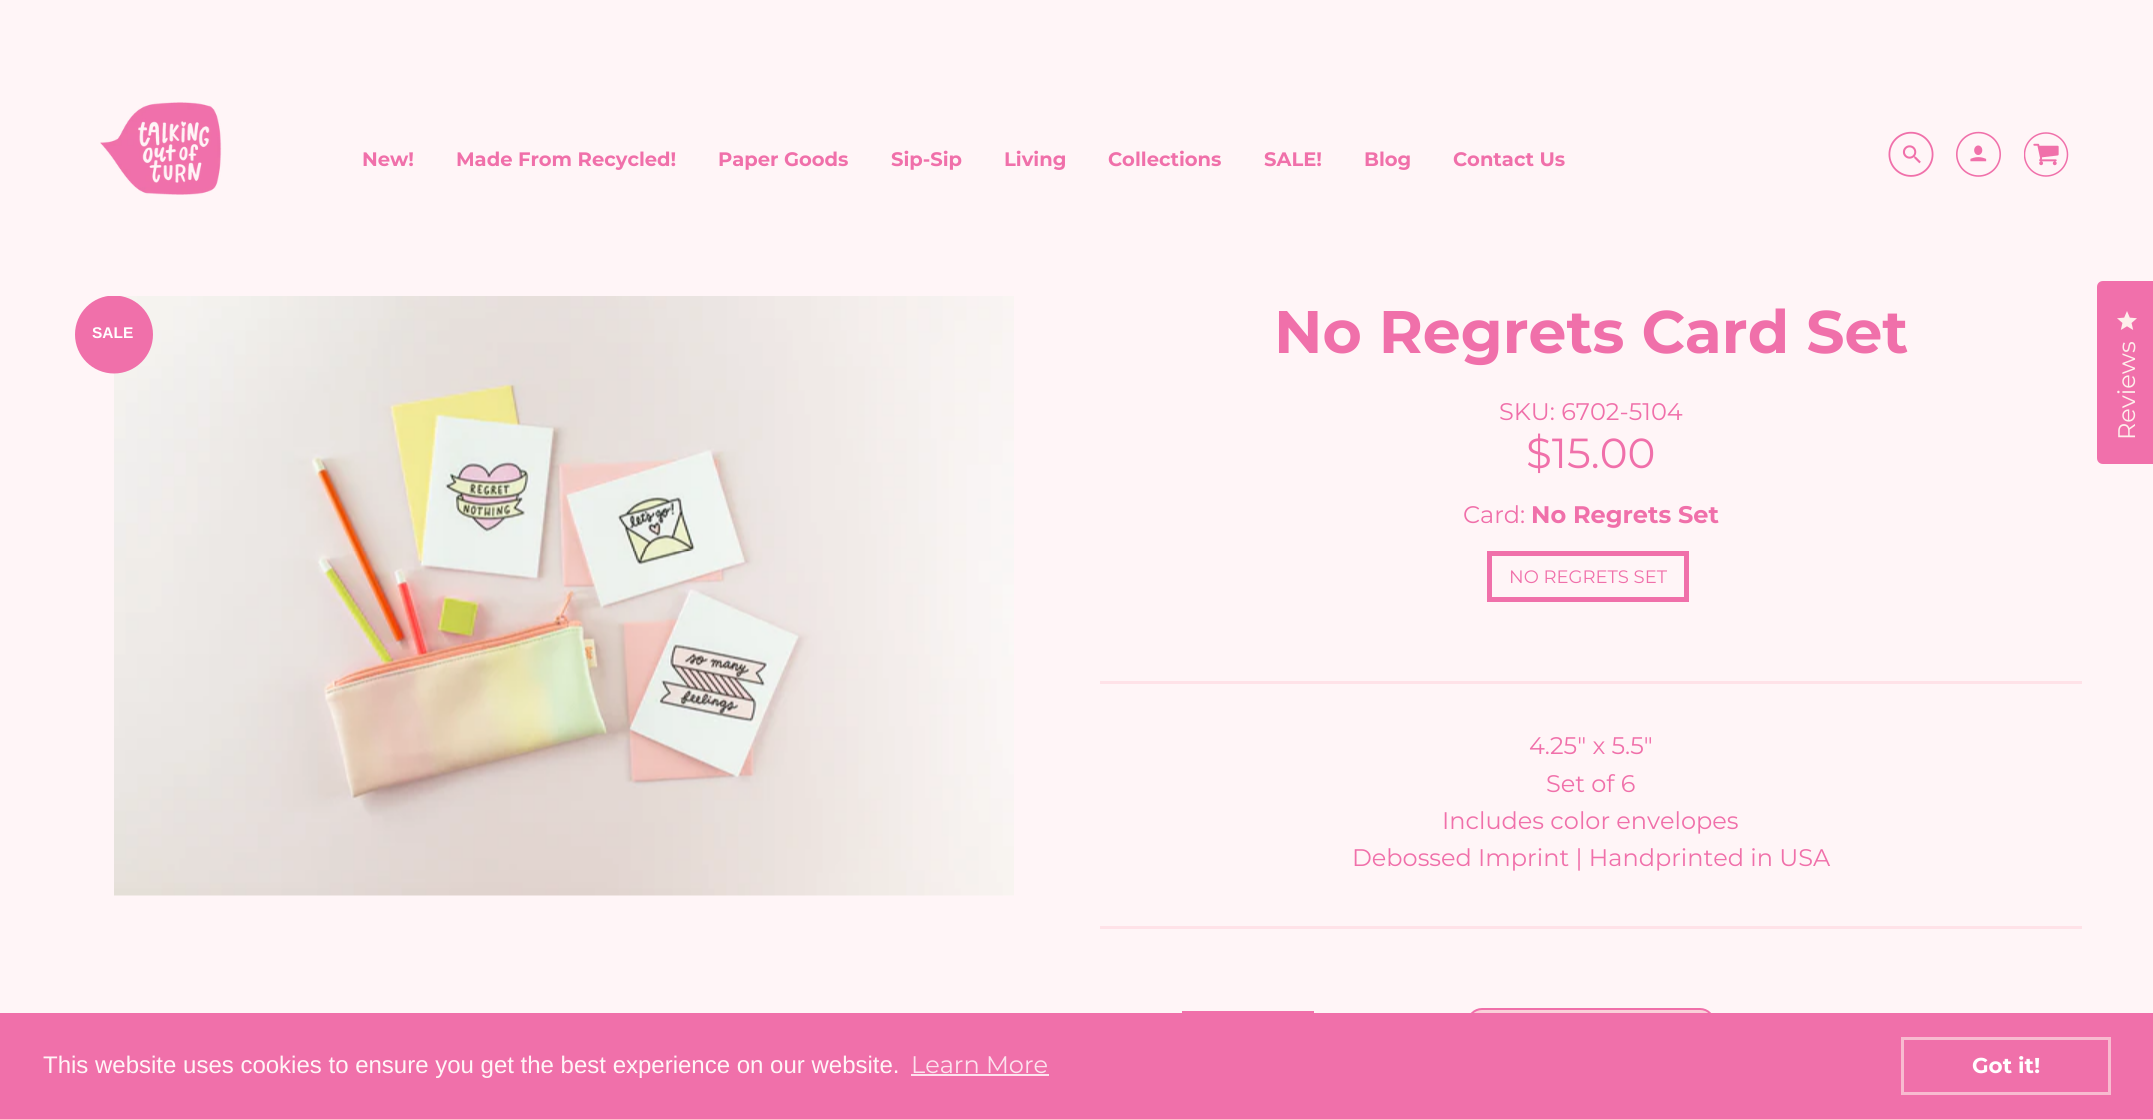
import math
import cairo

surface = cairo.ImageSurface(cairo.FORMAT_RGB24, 2153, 1119)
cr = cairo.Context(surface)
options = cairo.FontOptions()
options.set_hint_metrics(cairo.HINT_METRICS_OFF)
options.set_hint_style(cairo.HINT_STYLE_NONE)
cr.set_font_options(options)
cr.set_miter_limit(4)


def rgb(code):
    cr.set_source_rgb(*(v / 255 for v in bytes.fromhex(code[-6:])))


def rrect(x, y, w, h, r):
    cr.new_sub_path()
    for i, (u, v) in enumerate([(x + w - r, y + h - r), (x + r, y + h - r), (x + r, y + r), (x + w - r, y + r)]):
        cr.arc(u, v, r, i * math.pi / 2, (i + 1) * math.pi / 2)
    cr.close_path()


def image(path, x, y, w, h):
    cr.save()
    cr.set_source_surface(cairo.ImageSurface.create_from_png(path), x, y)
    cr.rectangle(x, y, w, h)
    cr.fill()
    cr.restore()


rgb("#fff5f7")
cr.paint()
image("img/1.png", 100, 102, 122, 93)
image("img/2.png", 1888, 131, 46, 46)
image("img/3.png", 1956, 131, 45, 46)
image("img/4.png", 2024, 132, 45, 45)
image("img/5.png", 114, 296, 900, 600)
cr.save()
cr.rectangle(75, 296, 78, 78)
cr.clip()
rgb("#f070aa")
cr.arc(114, 334.5, 39, 0, 2 * math.pi)
cr.fill()
cr.restore()
cr.rectangle(1491, 555, 194, 43)
rgb("#f070aa")
cr.stroke()
cr.rectangle(1488.5, 552.5, 199, 48)
cr.set_line_width(3)
cr.stroke()
for x, y, w, h, color in [
    (1100, 681, 982, 3, "#ffe2e8"),
    (1100, 926, 982, 3, "#ffe2e8"),
    (1218, 1011, 60, 2, "#f070aa"),
]:
    rgb(color)
    cr.rectangle(x, y, w, h)
    cr.fill()
cr.rectangle(1183, 1012, 36, 51)
cr.set_line_width(2)
cr.stroke()
cr.rectangle(1278, 1012, 35, 51)
cr.stroke()
rgb("#facfd9")
rrect(1468, 1009, 246, 58, 14)
cr.fill_preserve()
rgb("#f070aa")
cr.stroke()
rgb("#f170ab")
cr.new_path()
cr.move_to(2103, 281)
cr.line_to(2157, 281)
cr.line_to(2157, 464)
cr.line_to(2103, 464)
cr.curve_to(2099.5, 464, 2097, 461.5, 2097, 458)
cr.line_to(2097, 287)
cr.curve_to(2097, 283.5, 2099.5, 281, 2103, 281)
cr.close_path()
cr.fill()
image("img/6.png", 2117, 311, 20, 19)
rgb("#f070aa")
cr.rectangle(0, 1013, 2153, 106)
cr.fill()
rgb("#fce2ee")
cr.rectangle(911, 1074, 138, 2)
cr.fill()
cr.rectangle(1902.5, 1038.5, 207, 55)
rgb("#f8bbd0")
cr.set_line_width(3)
cr.stroke()
cr.select_font_face("Montserrat", cairo.FONT_SLANT_NORMAL, cairo.FONT_WEIGHT_BOLD)
cr.set_font_size(19.5)
rgb("#f070aa")
for x, y, s in [
    (362, 166, "New!"),
    (456, 166, "Made From Recycled!"),
    (718, 166, "Paper Goods"),
    (891, 166, "Sip-Sip"),
    (1004, 166, "Living"),
    (1108, 166, "Collections"),
    (1264, 166, "SALE!"),
    (1364, 166, "Blog"),
    (1453, 166, "Contact Us"),
]:
    cr.move_to(x, y)
    cr.show_text(s)
cr.select_font_face("Liberation Sans", cairo.FONT_SLANT_NORMAL, cairo.FONT_WEIGHT_BOLD)
cr.set_font_size(15.5)
rgb("#ffffff")
cr.move_to(92, 338)
cr.show_text("SALE")
cr.select_font_face("Montserrat", cairo.FONT_SLANT_NORMAL, cairo.FONT_WEIGHT_BOLD)
cr.set_font_size(60)
rgb("#f070aa")
cr.move_to(1274, 353)
cr.show_text("No Regrets Card Set")
cr.select_font_face("Montserrat Thin")
cr.set_font_size(24)
cr.move_to(1499, 420)
cr.show_text("SKU: 6702-5104")
cr.set_font_size(42)
cr.move_to(1526, 468)
cr.show_text("$15.00")
cr.set_font_size(24)
cr.move_to(1463, 523)
cr.show_text("Card:")
cr.select_font_face("Montserrat", cairo.FONT_SLANT_NORMAL, cairo.FONT_WEIGHT_BOLD)
cr.move_to(1531, 523)
cr.show_text("No Regrets Set")
cr.select_font_face("Montserrat Thin")
cr.set_font_size(18)
cr.move_to(1509, 583)
cr.show_text("NO REGRETS SET")
cr.set_font_size(24)
for x, y, s in [
    (1529, 754, "4.25\" x 5.5\""),
    (1546, 792, "Set of 6"),
    (1442, 829, "Includes color envelopes"),
    (1352, 866, "Debossed Imprint | Handprinted in USA"),
]:
    cr.move_to(x, y)
    cr.show_text(s)
rgb("#feeeeb")
cr.save()
cr.translate(2135, 440)
cr.rotate(-89.9 * math.pi / 180)
cr.move_to(0, 0)
cr.show_text("Reviews")
cr.restore()
cr.select_font_face("Liberation Sans")
rgb("#fff5f7")
cr.move_to(43, 1073)
cr.show_text("This website uses cookies to ensure you get the best experience on our website.")
cr.select_font_face("Montserrat Thin")
rgb("#fce2ee")
cr.move_to(911, 1073)
cr.show_text("Learn More")
cr.select_font_face("Montserrat", cairo.FONT_SLANT_NORMAL, cairo.FONT_WEIGHT_BOLD)
cr.set_font_size(21.5)
rgb("#ffffff")
cr.move_to(1972, 1073)
cr.show_text("Got it!")
surface.write_to_png("page.png")
